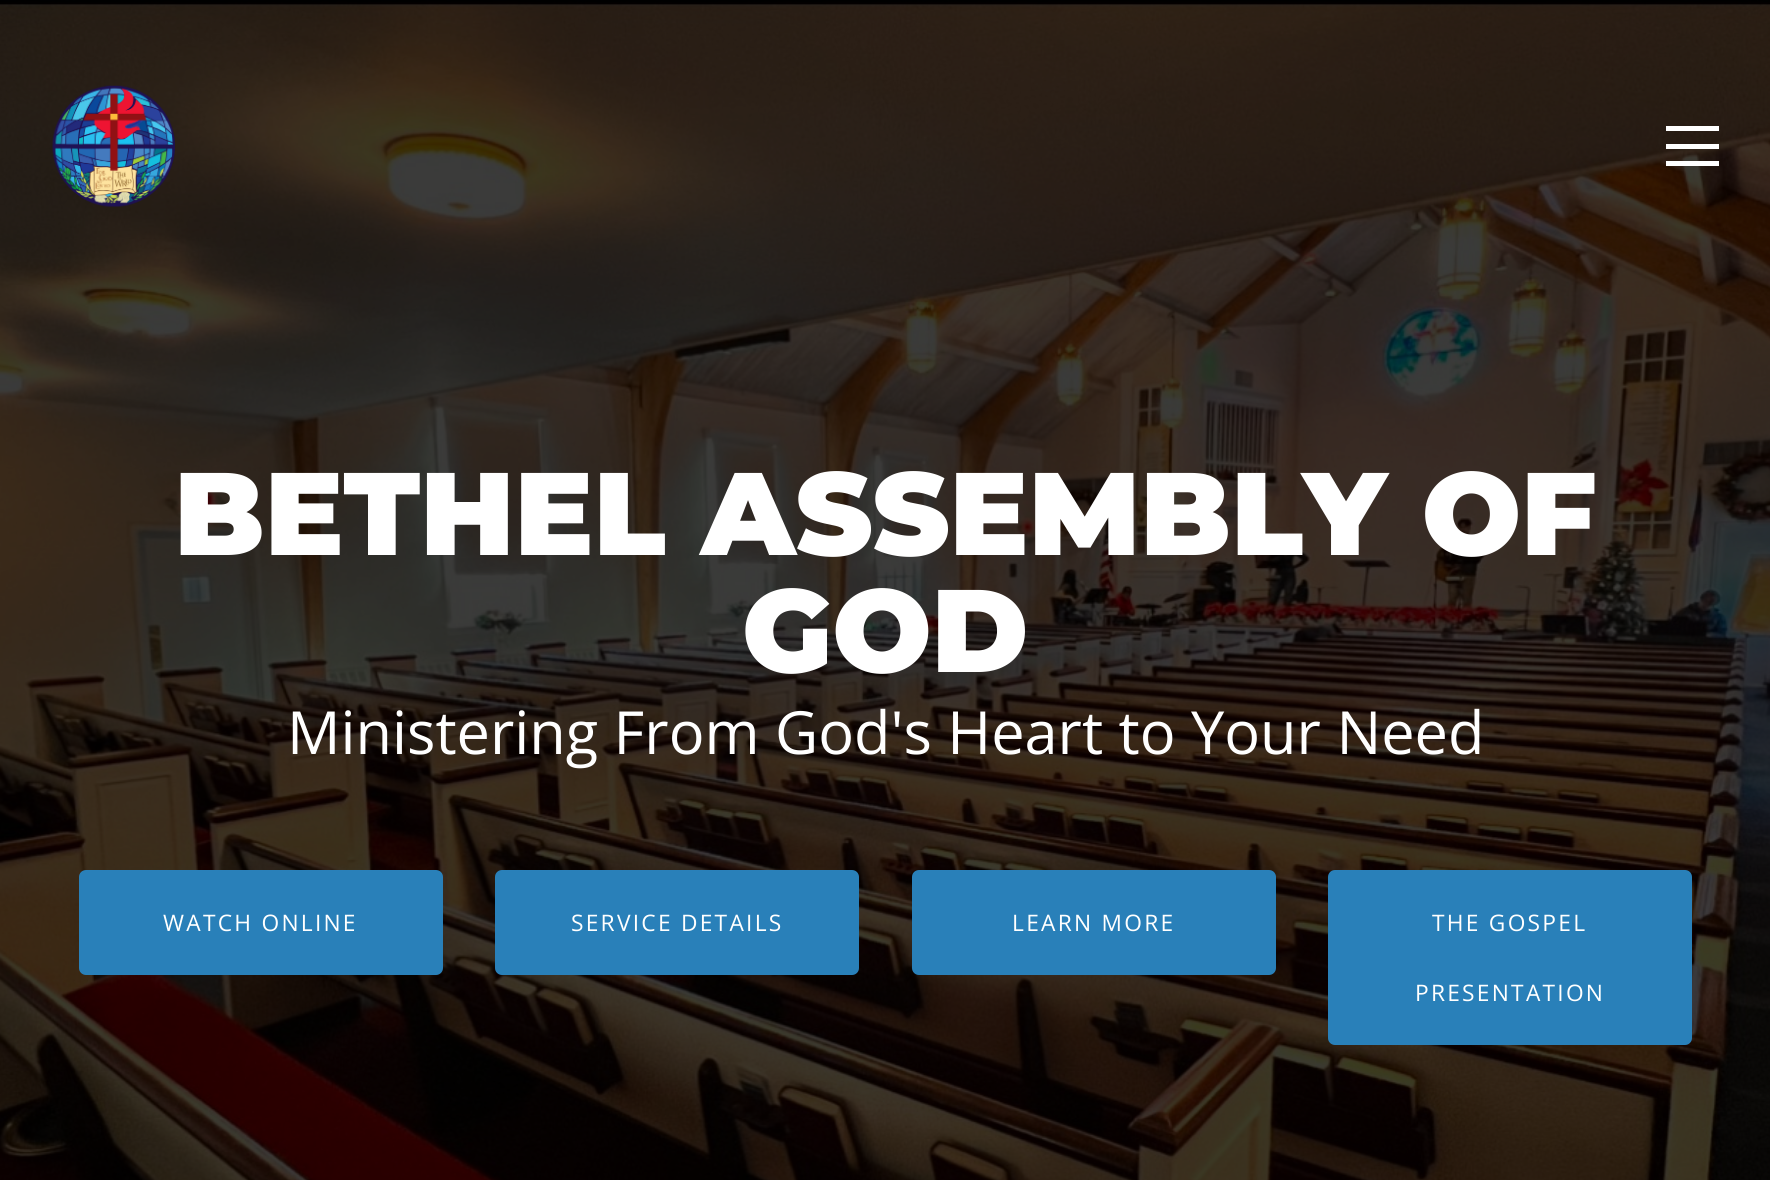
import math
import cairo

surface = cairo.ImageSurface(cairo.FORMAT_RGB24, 1770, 1180)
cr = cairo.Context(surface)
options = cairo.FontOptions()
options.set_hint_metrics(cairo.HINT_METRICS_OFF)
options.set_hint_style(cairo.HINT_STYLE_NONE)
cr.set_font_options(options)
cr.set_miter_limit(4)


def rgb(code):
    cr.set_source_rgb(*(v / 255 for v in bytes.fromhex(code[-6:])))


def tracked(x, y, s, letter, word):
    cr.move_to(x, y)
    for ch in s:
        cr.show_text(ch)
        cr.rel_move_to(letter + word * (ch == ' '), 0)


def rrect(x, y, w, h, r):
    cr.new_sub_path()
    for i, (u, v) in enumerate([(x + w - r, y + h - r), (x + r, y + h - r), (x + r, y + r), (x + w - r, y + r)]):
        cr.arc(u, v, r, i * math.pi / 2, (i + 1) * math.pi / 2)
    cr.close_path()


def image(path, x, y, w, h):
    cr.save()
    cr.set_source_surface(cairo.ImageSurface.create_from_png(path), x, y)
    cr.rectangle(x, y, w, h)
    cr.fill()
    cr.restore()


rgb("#ffffff")
cr.paint()
image("img/2.png", 0, 0, 1770, 1180)
image("img/1.png", 52, 85, 123, 122)
for x, y, w, h, color in [
    (1666, 126, 53, 5, "#ffffff"),
    (1666, 144, 53, 5, "#ffffff"),
    (1666, 161, 53, 5, "#ffffff"),
]:
    rgb(color)
    cr.rectangle(x, y, w, h)
    cr.fill()
rgb("#2980b9")
rrect(79, 870, 364, 105, 7)
cr.fill()
rrect(495, 870, 364, 105, 7)
cr.fill()
rrect(912, 870, 364, 105, 7)
cr.fill()
rrect(1328, 870, 364, 175, 7)
cr.fill()
cr.select_font_face("Montserrat Black")
cr.set_font_size(117.25)
rgb("#ffffff")
cr.move_to(174, 555)
cr.show_text("BETHEL ASSEMBLY OF")
cr.move_to(742, 672)
cr.show_text("GOD")
cr.select_font_face("Open Sans")
cr.set_font_size(59.5)
cr.move_to(287, 754)
cr.show_text("Ministering From God's Heart to Your Need")
cr.set_font_size(22.75)
for x, y, s in [
    (163, 931, "WATCH ONLINE"),
    (571, 931, "SERVICE DETAILS"),
    (1012, 931, "LEARN MORE"),
    (1432, 931, "THE GOSPEL"),
    (1415, 1001, "PRESENTATION"),
]:
    tracked(x, y, s, 2.25, 0)
surface.write_to_png("page.png")
